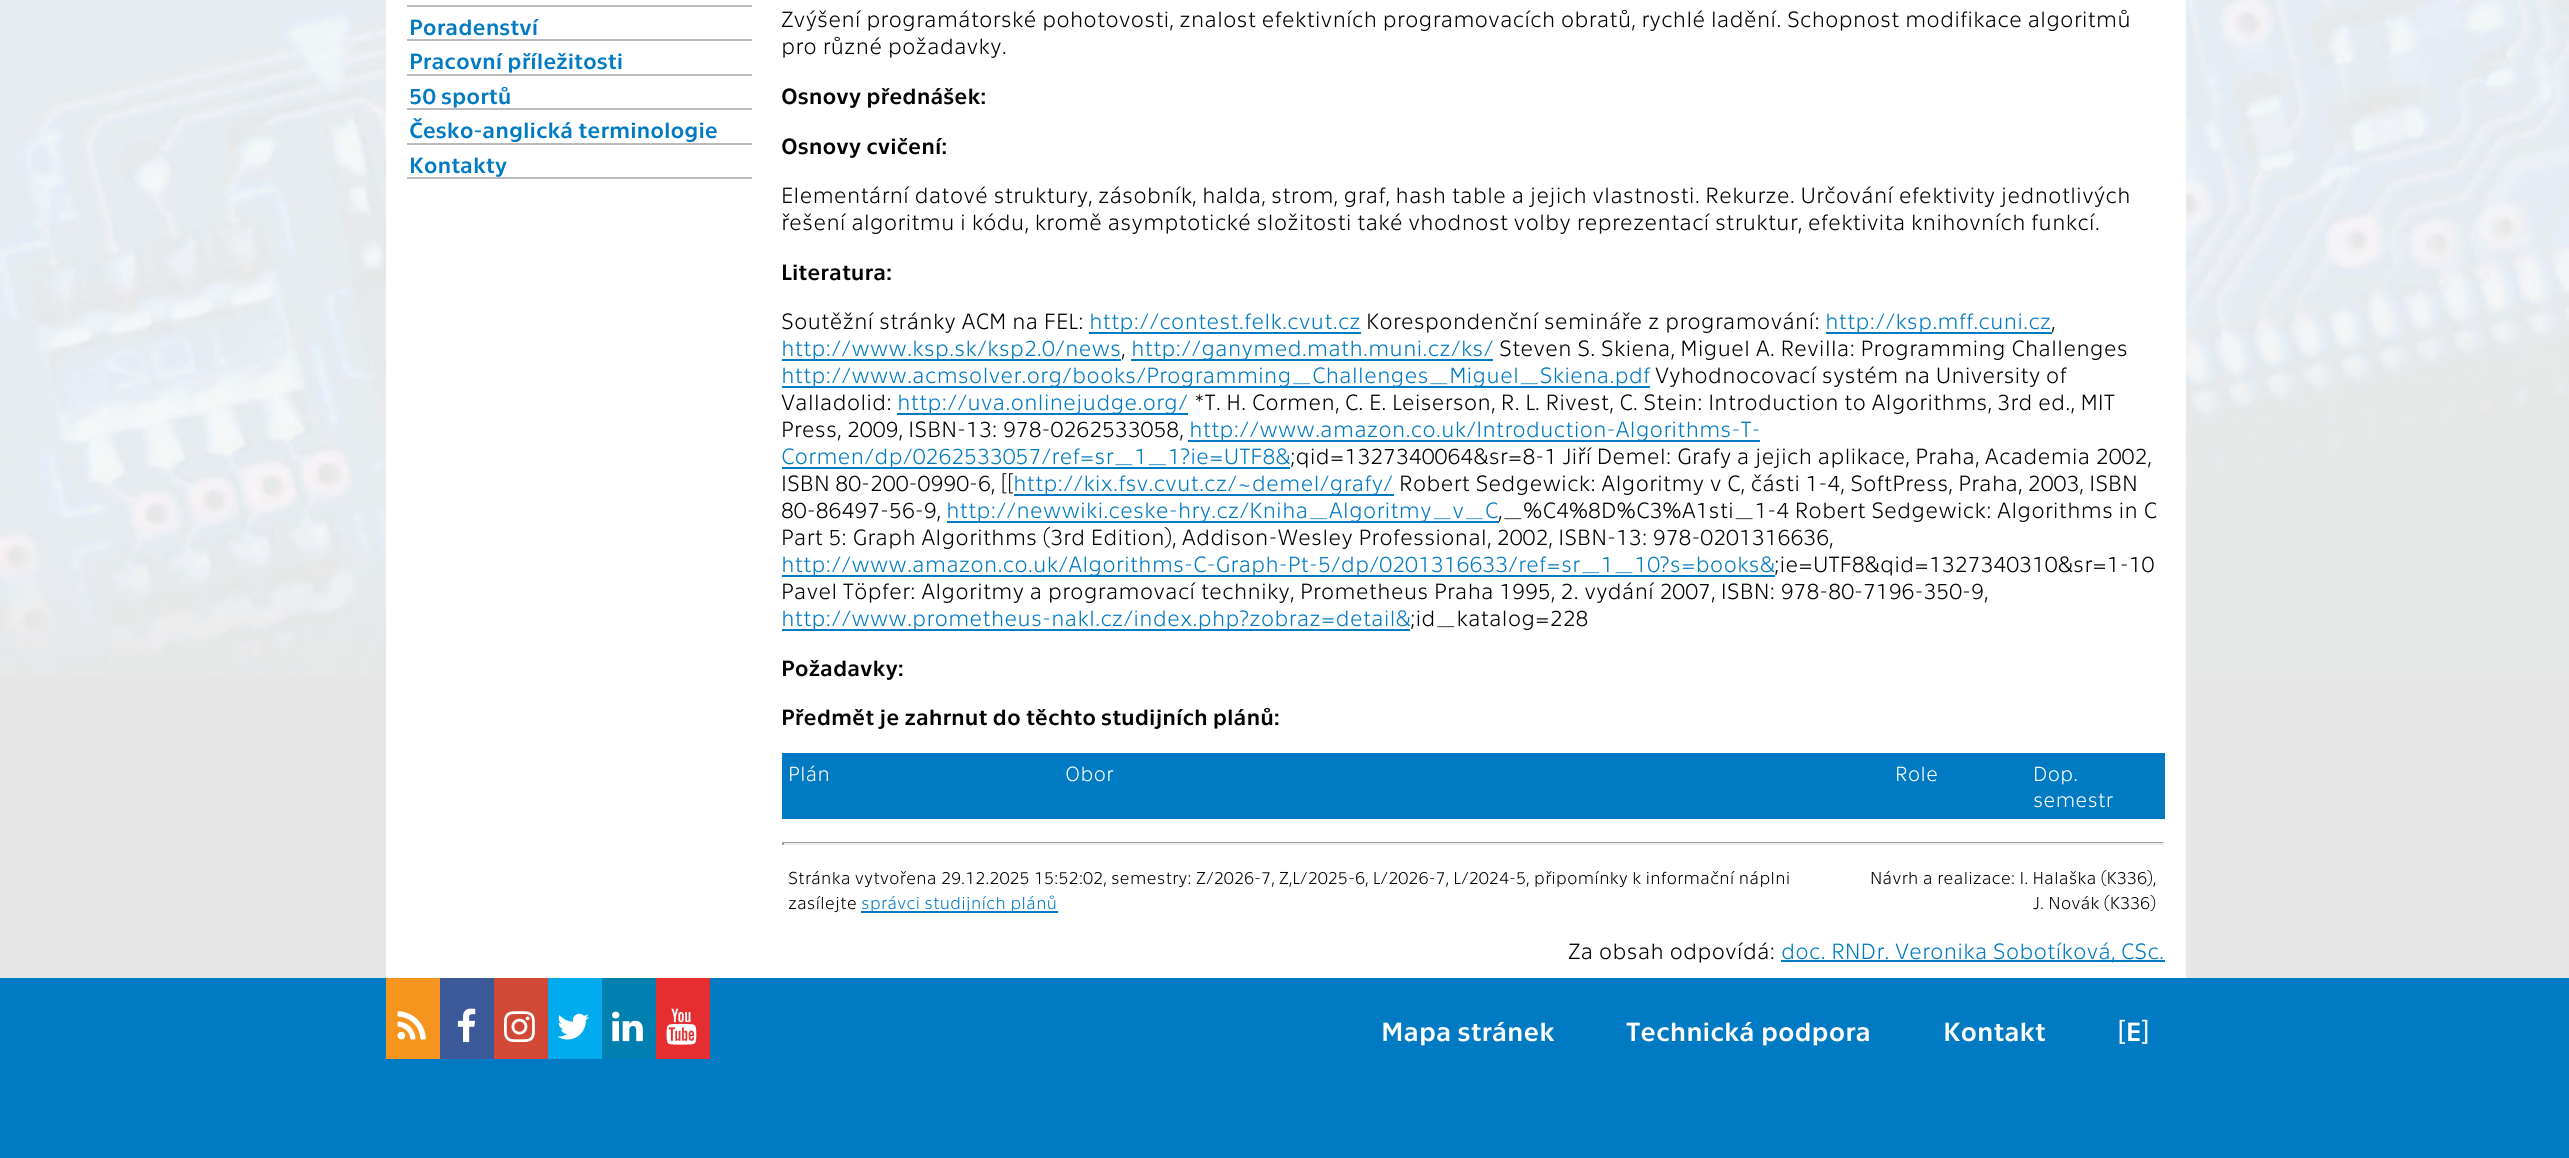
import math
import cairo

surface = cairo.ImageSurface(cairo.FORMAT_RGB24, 2569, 1158)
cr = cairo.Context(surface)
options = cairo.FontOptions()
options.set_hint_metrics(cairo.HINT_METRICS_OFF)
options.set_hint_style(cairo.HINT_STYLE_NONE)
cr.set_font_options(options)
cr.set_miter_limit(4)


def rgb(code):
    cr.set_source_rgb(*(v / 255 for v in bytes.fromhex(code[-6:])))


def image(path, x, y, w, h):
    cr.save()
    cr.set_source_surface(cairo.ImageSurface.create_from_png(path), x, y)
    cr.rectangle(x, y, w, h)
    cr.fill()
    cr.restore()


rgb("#e6e6e6")
cr.paint()
image("img/1.png", 0, 0, 2569, 674)
for x, y, w, h, color in [
    (386, 0, 1800, 978, "#ffffff"),
    (407, 5, 345, 2, "#bbbbbb"),
    (407, 39, 345, 2, "#bbbbbb"),
    (407, 74, 345, 2, "#bbbbbb"),
    (407, 108, 345, 2, "#bbbbbb"),
    (407, 143, 345, 2, "#bbbbbb"),
    (407, 177, 345, 2, "#bbbbbb"),
    (1089, 332, 272, 2, "#007ac3"),
    (1826, 332, 226, 2, "#007ac3"),
    (782, 359, 339, 2, "#007ac3"),
    (1131, 359, 362, 2, "#007ac3"),
    (782, 386, 868, 2, "#007ac3"),
    (897, 413, 291, 2, "#007ac3"),
    (1188, 440, 572, 2, "#007ac3"),
    (782, 467, 508, 2, "#007ac3"),
    (1014, 494, 380, 2, "#007ac3"),
    (947, 521, 552, 2, "#007ac3"),
    (782, 575, 993, 2, "#007ac3"),
    (782, 629, 628, 2, "#007ac3"),
    (782, 753, 1383, 66, "#007ac3"),
    (782, 842, 1383, 1, "#9f9f9f"),
    (2163, 842, 2, 3, "#eeeeee"),
    (782, 843, 1383, 2, "#eeeeee"),
    (782, 842, 2, 3, "#9f9f9f"),
    (861, 911, 197, 2, "#007ac3"),
    (1781, 960, 384, 2, "#007ac3"),
    (0, 978, 2569, 180, "#007ac3"),
    (386, 978, 54, 81, "#f7941d"),
]:
    rgb(color)
    cr.rectangle(x, y, w, h)
    cr.fill()
image("img/2.png", 397, 1011, 29, 29)
rgb("#3b5998")
cr.rectangle(440, 978, 54, 81)
cr.fill()
image("img/3.png", 457, 1008, 19, 35)
rgb("#d14836")
cr.rectangle(494, 978, 54, 81)
cr.fill()
image("img/4.png", 504, 1011, 31, 32)
rgb("#00aced")
cr.rectangle(548, 978, 54, 81)
cr.fill()
image("img/5.png", 557, 1013, 32, 27)
rgb("#007fb1")
cr.rectangle(602, 978, 54, 81)
cr.fill()
image("img/6.png", 612, 1011, 31, 31)
rgb("#e62e30")
cr.rectangle(656, 978, 54, 81)
cr.fill()
image("img/7.png", 666, 1008, 31, 37)
cr.select_font_face("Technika")
cr.set_font_size(22.58)
rgb("#007ac3")
for x, y, s in [
    (409, 35, "Poradenství"),
    (409, 69, "Pracovní příležitosti"),
    (409, 104, "50 sportů"),
    (409, 138, "Česko-anglická terminologie"),
    (409, 173, "Kontakty"),
]:
    cr.move_to(x, y)
    cr.show_text(s)
cr.select_font_face("Technika Light")
rgb("#000000")
cr.move_to(781, 27)
cr.show_text("Zvýšení programátorské pohotovosti, znalost efektivních programovacích obratů, rychlé ladění. Schopnost modifikace algoritmů")
cr.move_to(781, 54)
cr.show_text("pro různé požadavky.")
cr.select_font_face("Technika")
cr.move_to(781, 104)
cr.show_text("Osnovy přednášek:")
cr.move_to(781, 154)
cr.show_text("Osnovy cvičení:")
cr.select_font_face("Technika Light")
cr.move_to(781, 203)
cr.show_text("Elementární datové struktury, zásobník, halda, strom, graf, hash table a jejich vlastnosti. Rekurze. Určování efektivity jednotlivých")
cr.move_to(781, 230)
cr.show_text("řešení algoritmu i kódu, kromě asymptotické složitosti také vhodnost volby reprezentací struktur, efektivita knihovních funkcí.")
cr.select_font_face("Technika")
cr.move_to(781, 280)
cr.show_text("Literatura:")
cr.select_font_face("Technika Light")
cr.move_to(781, 329)
cr.show_text("Soutěžní stránky ACM na FEL:")
rgb("#007ac3")
cr.move_to(1089, 329)
cr.show_text("http://contest.felk.cvut.cz")
rgb("#000000")
cr.move_to(1366, 329)
cr.show_text("Korespondenční semináře z programování:")
rgb("#007ac3")
cr.move_to(1825, 329)
cr.show_text("http://ksp.mff.cuni.cz")
rgb("#000000")
cr.move_to(2051, 329)
cr.show_text(",")
rgb("#007ac3")
cr.move_to(781, 356)
cr.show_text("http://www.ksp.sk/ksp2.0/news")
rgb("#000000")
cr.move_to(1121, 356)
cr.show_text(",")
rgb("#007ac3")
cr.move_to(1131, 356)
cr.show_text("http://ganymed.math.muni.cz/ks/")
rgb("#000000")
cr.move_to(1499, 356)
cr.show_text("Steven S. Skiena, Miguel A. Revilla: Programming Challenges")
rgb("#007ac3")
cr.move_to(781, 383)
cr.show_text("http://www.acmsolver.org/books/Programming_Challenges_Miguel_Skiena.pdf")
rgb("#000000")
cr.move_to(1655, 383)
cr.show_text("Vyhodnocovací systém na University of")
cr.move_to(781, 410)
cr.show_text("Valladolid:")
rgb("#007ac3")
cr.move_to(897, 410)
cr.show_text("http://uva.onlinejudge.org/")
rgb("#000000")
cr.move_to(1194, 410)
cr.show_text("*T. H. Cormen, C. E. Leiserson, R. L. Rivest, C. Stein: Introduction to Algorithms, 3rd ed., MIT")
cr.move_to(781, 437)
cr.show_text("Press, 2009, ISBN-13: 978-0262533058,")
rgb("#007ac3")
cr.move_to(1189, 437)
cr.show_text("http://www.amazon.co.uk/Introduction-Algorithms-T-")
cr.move_to(781, 464)
cr.show_text("Cormen/dp/0262533057/ref=sr_1_1?ie=UTF8&")
rgb("#000000")
cr.move_to(1290, 464)
cr.show_text(";qid=1327340064&sr=8-1 Jiří Demel: Grafy a jejich aplikace, Praha, Academia 2002,")
cr.move_to(781, 491)
cr.show_text("ISBN 80-200-0990-6, [[")
rgb("#007ac3")
cr.move_to(1013, 491)
cr.show_text("http://kix.fsv.cvut.cz/~demel/grafy/")
rgb("#000000")
cr.move_to(1399, 491)
cr.show_text("Robert Sedgewick: Algoritmy v C, části 1-4, SoftPress, Praha, 2003, ISBN")
cr.move_to(781, 518)
cr.show_text("80-86497-56-9,")
rgb("#007ac3")
cr.move_to(946, 518)
cr.show_text("http://newwiki.ceske-hry.cz/Kniha_Algoritmy_v_C")
rgb("#000000")
cr.move_to(1498, 518)
cr.show_text(",_%C4%8D%C3%A1sti_1-4 Robert Sedgewick: Algorithms in C")
cr.move_to(781, 545)
cr.show_text("Part 5: Graph Algorithms (3rd Edition), Addison-Wesley Professional, 2002, ISBN-13: 978-0201316636,")
rgb("#007ac3")
cr.move_to(781, 572)
cr.show_text("http://www.amazon.co.uk/Algorithms-C-Graph-Pt-5/dp/0201316633/ref=sr_1_10?s=books&")
rgb("#000000")
cr.move_to(1774, 572)
cr.show_text(";ie=UTF8&qid=1327340310&sr=1-10")
cr.move_to(781, 599)
cr.show_text("Pavel Töpfer: Algoritmy a programovací techniky, Prometheus Praha 1995, 2. vydání 2007, ISBN: 978-80-7196-350-9,")
rgb("#007ac3")
cr.move_to(781, 626)
cr.show_text("http://www.prometheus-nakl.cz/index.php?zobraz=detail&")
rgb("#000000")
cr.move_to(1410, 626)
cr.show_text(";id_katalog=228")
cr.select_font_face("Technika")
cr.move_to(781, 676)
cr.show_text("Požadavky:")
cr.move_to(781, 725)
cr.show_text("Předmět je zahrnut do těchto studijních plánů:")
cr.select_font_face("Technika Light")
cr.set_font_size(21)
rgb("#ffffff")
for x, y, s in [
    (788, 781, "Plán"),
    (1065, 781, "Obor"),
    (1895, 781, "Role"),
    (2033, 781, "Dop."),
    (2033, 807, "semestr"),
]:
    cr.move_to(x, y)
    cr.show_text(s)
cr.set_font_size(17.67)
rgb("#000000")
cr.move_to(788, 884)
cr.show_text("Stránka vytvořena 29.12.2025 15:52:02, semestry: Z/2026-7, Z,L/2025-6, L/2026-7, L/2024-5, připomínky k informační náplni")
cr.move_to(788, 909)
cr.show_text("zasílejte")
rgb("#007ac3")
cr.move_to(861, 909)
cr.show_text("správci studijních plánů")
rgb("#000000")
cr.move_to(1870, 884)
cr.show_text("Návrh a realizace: I. Halaška (K336),")
cr.move_to(2033, 909)
cr.show_text("J. Novák (K336)")
cr.set_font_size(22.58)
cr.move_to(1568, 959)
cr.show_text("Za obsah odpovídá:")
rgb("#007ac3")
cr.move_to(1781, 959)
cr.show_text("doc. RNDr. Veronika Sobotíková, CSc.")
cr.select_font_face("Technika")
cr.set_font_size(27)
rgb("#ffffff")
for x, y, s in [
    (1381, 1041, "Mapa stránek"),
    (1626, 1041, "Technická podpora"),
    (1943, 1041, "Kontakt"),
    (2118, 1041, "[E]"),
]:
    cr.move_to(x, y)
    cr.show_text(s)
surface.write_to_png("page.png")
